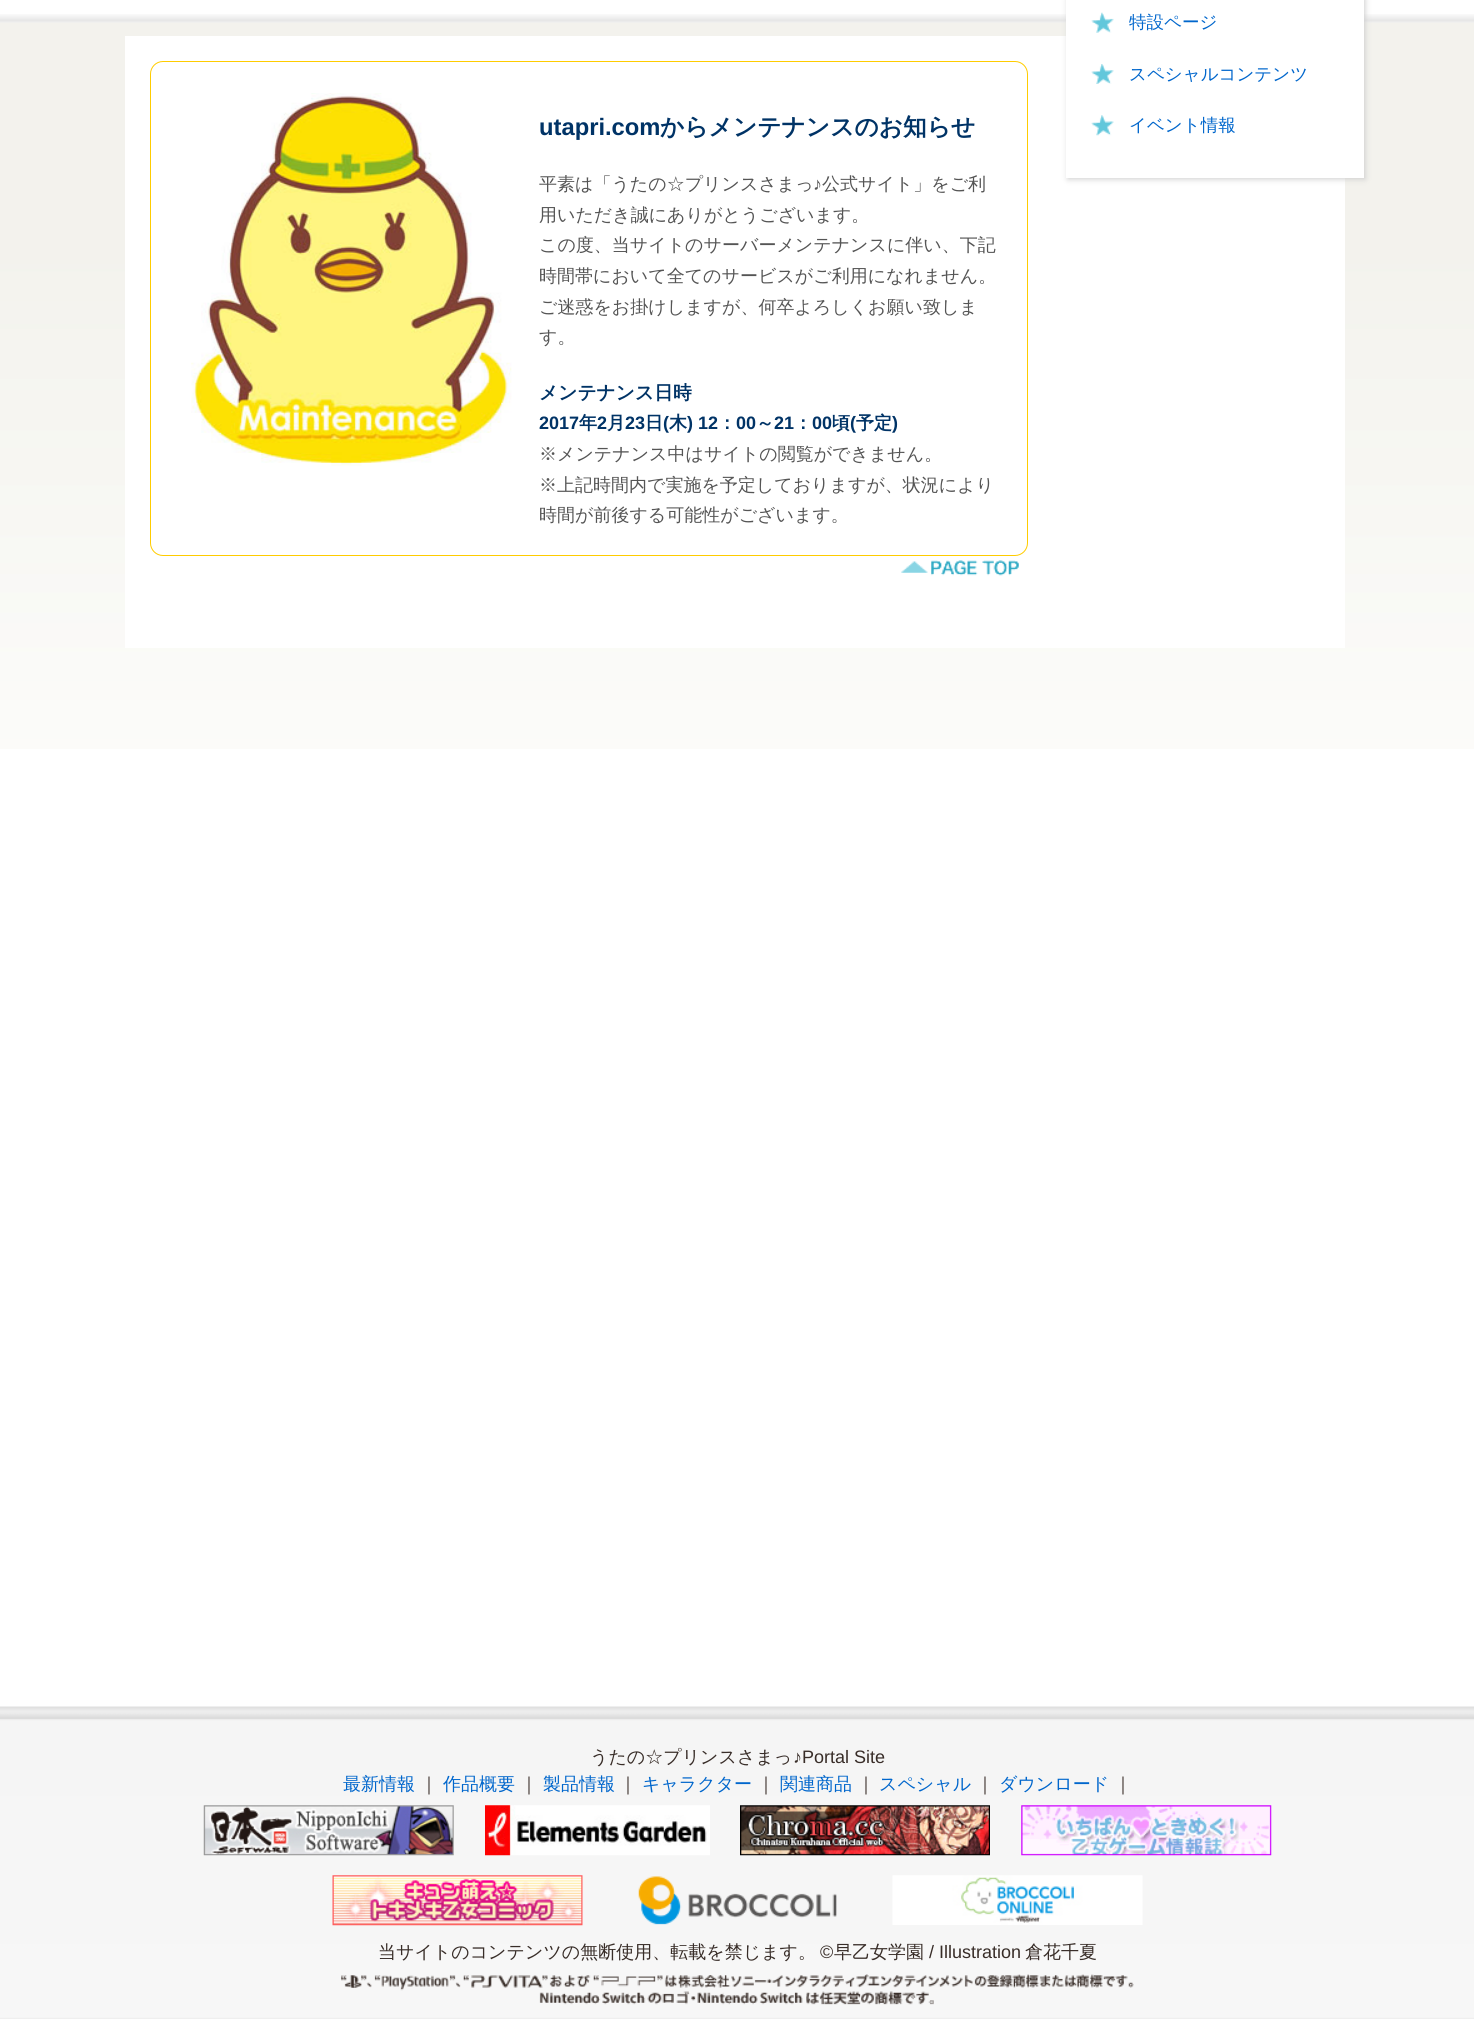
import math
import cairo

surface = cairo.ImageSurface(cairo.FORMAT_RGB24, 1474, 2034)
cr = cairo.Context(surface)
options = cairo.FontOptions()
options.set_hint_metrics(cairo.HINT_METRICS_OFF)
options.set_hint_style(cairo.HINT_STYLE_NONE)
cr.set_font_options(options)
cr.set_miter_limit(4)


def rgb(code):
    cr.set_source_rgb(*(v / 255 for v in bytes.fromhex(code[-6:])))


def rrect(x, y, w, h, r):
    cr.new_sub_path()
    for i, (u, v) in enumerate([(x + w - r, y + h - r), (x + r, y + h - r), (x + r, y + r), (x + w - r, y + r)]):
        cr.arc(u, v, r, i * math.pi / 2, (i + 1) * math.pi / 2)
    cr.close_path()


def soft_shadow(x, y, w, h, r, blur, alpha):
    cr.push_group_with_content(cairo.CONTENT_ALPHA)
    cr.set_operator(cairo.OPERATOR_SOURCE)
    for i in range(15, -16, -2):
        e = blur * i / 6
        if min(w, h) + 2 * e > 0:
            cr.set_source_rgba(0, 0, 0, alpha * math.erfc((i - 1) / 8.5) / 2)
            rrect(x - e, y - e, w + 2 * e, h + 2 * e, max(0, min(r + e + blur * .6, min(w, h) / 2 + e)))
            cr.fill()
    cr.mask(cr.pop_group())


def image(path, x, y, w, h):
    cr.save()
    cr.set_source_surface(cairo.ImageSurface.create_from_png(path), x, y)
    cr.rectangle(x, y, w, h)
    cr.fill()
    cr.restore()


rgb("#ffffff")
cr.paint()
image("img/1.png", 0, 14, 1474, 735)
rgb("#ffffff")
cr.rectangle(125, 36, 1220, 612)
cr.fill()
rgb("#cccccc")
soft_shadow(1068, -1, 297, 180, 0, 3, 1)
rgb("#ffffff")
cr.rectangle(1066, 0, 298, 178)
cr.fill()
image("img/2.png", 1091, 12, 23, 21)
image("img/3.png", 1091, 64, 23, 20)
image("img/4.png", 1091, 115, 23, 21)
image("img/5.png", 191, 93, 321, 373)
rrect(150.5, 61.5, 877, 494, 12.5)
rgb("#ffcc00")
cr.set_line_width(1)
cr.stroke()
image("img/6.png", 901, 560, 118, 16)
image("img/7.png", 0, 1706, 1474, 313)
image("img/8.png", 203, 1805, 251, 51)
image("img/9.png", 485, 1805, 225, 51)
image("img/10.png", 740, 1805, 250, 51)
image("img/11.png", 1021, 1805, 251, 51)
image("img/12.png", 332, 1875, 251, 51)
image("img/13.png", 638, 1876, 199, 49)
image("img/14.png", 892, 1875, 251, 50)
image("img/15.png", 341, 1974, 793, 31)
cr.select_font_face("WenQuanYi Zen Hei Medium")
cr.set_font_size(17.5)
rgb("#0066cc")
for x, y, s in [
    (1129, 28, "特設ページ"),
    (1129, 80, "スペシャルコンテンツ"),
    (1129, 131, "イベント情報"),
]:
    cr.move_to(x, y)
    cr.show_text(s)
cr.select_font_face("Liberation Sans", cairo.FONT_SLANT_NORMAL, cairo.FONT_WEIGHT_BOLD)
cr.set_font_size(23.75)
rgb("#003366")
cr.move_to(539, 135)
cr.show_text("utapri.com")
cr.select_font_face("WenQuanYi Zen Hei", cairo.FONT_SLANT_NORMAL, cairo.FONT_WEIGHT_BOLD)
cr.move_to(660, 135)
cr.show_text("からメンテナンスのお知らせ")
cr.select_font_face("WenQuanYi Zen Hei Medium")
cr.set_font_size(18)
rgb("#555555")
cr.move_to(539, 190)
cr.show_text("平素は「うたの☆プリンスさまっ")
cr.select_font_face("Liberation Sans")
cr.move_to(813, 190)
cr.show_text("♪")
cr.select_font_face("WenQuanYi Zen Hei Medium")
for x, y, s in [
    (822, 190, "公式サイト」をご利"),
    (539, 221, "用いただき誠にありがとうございます。"),
    (539, 251, "この度、当サイトのサーバーメンテナンスに伴い、下記"),
    (539, 282, "時間帯において全てのサービスがご利用になれません。"),
    (539, 313, "ご迷惑をお掛けしますが、何卒よろしくお願い致しま"),
    (539, 343, "す。"),
]:
    cr.move_to(x, y)
    cr.show_text(s)
cr.select_font_face("WenQuanYi Zen Hei", cairo.FONT_SLANT_NORMAL, cairo.FONT_WEIGHT_BOLD)
cr.set_font_size(18.75)
rgb("#003366")
cr.move_to(539, 399)
cr.show_text("メンテナンス日時")
cr.select_font_face("Liberation Sans", cairo.FONT_SLANT_NORMAL, cairo.FONT_WEIGHT_BOLD)
cr.set_font_size(18)
cr.move_to(539, 429)
cr.show_text("2017")
cr.select_font_face("WenQuanYi Zen Hei", cairo.FONT_SLANT_NORMAL, cairo.FONT_WEIGHT_BOLD)
cr.move_to(579, 429)
cr.show_text("年")
cr.select_font_face("Liberation Sans", cairo.FONT_SLANT_NORMAL, cairo.FONT_WEIGHT_BOLD)
cr.move_to(597, 429)
cr.show_text("2")
cr.select_font_face("WenQuanYi Zen Hei", cairo.FONT_SLANT_NORMAL, cairo.FONT_WEIGHT_BOLD)
cr.move_to(607, 429)
cr.show_text("月")
cr.select_font_face("Liberation Sans", cairo.FONT_SLANT_NORMAL, cairo.FONT_WEIGHT_BOLD)
cr.move_to(625, 429)
cr.show_text("23")
cr.select_font_face("WenQuanYi Zen Hei", cairo.FONT_SLANT_NORMAL, cairo.FONT_WEIGHT_BOLD)
cr.move_to(645, 429)
cr.show_text("日")
cr.select_font_face("Liberation Sans", cairo.FONT_SLANT_NORMAL, cairo.FONT_WEIGHT_BOLD)
cr.move_to(663, 429)
cr.show_text("(")
cr.select_font_face("WenQuanYi Zen Hei", cairo.FONT_SLANT_NORMAL, cairo.FONT_WEIGHT_BOLD)
cr.move_to(669, 429)
cr.show_text("木")
cr.select_font_face("Liberation Sans", cairo.FONT_SLANT_NORMAL, cairo.FONT_WEIGHT_BOLD)
cr.move_to(687, 429)
cr.show_text(") 12")
cr.select_font_face("WenQuanYi Zen Hei", cairo.FONT_SLANT_NORMAL, cairo.FONT_WEIGHT_BOLD)
cr.move_to(718, 429)
cr.show_text("：")
cr.select_font_face("Liberation Sans", cairo.FONT_SLANT_NORMAL, cairo.FONT_WEIGHT_BOLD)
cr.move_to(736, 429)
cr.show_text("00")
cr.select_font_face("WenQuanYi Zen Hei", cairo.FONT_SLANT_NORMAL, cairo.FONT_WEIGHT_BOLD)
cr.move_to(756, 429)
cr.show_text("～")
cr.select_font_face("Liberation Sans", cairo.FONT_SLANT_NORMAL, cairo.FONT_WEIGHT_BOLD)
cr.move_to(774, 429)
cr.show_text("21")
cr.select_font_face("WenQuanYi Zen Hei", cairo.FONT_SLANT_NORMAL, cairo.FONT_WEIGHT_BOLD)
cr.move_to(794, 429)
cr.show_text("：")
cr.select_font_face("Liberation Sans", cairo.FONT_SLANT_NORMAL, cairo.FONT_WEIGHT_BOLD)
cr.move_to(812, 429)
cr.show_text("00")
cr.select_font_face("WenQuanYi Zen Hei", cairo.FONT_SLANT_NORMAL, cairo.FONT_WEIGHT_BOLD)
cr.move_to(832, 429)
cr.show_text("頃")
cr.select_font_face("Liberation Sans", cairo.FONT_SLANT_NORMAL, cairo.FONT_WEIGHT_BOLD)
cr.move_to(850, 429)
cr.show_text("(")
cr.select_font_face("WenQuanYi Zen Hei", cairo.FONT_SLANT_NORMAL, cairo.FONT_WEIGHT_BOLD)
cr.move_to(856, 429)
cr.show_text("予定")
cr.select_font_face("Liberation Sans", cairo.FONT_SLANT_NORMAL, cairo.FONT_WEIGHT_BOLD)
cr.move_to(892, 429)
cr.show_text(")")
cr.select_font_face("WenQuanYi Zen Hei Medium")
rgb("#555555")
for x, y, s in [
    (539, 460, "※メンテナンス中はサイトの閲覧ができません。"),
    (539, 491, "※上記時間内で実施を予定しておりますが、状況により"),
    (539, 521, "時間が前後する可能性がございます。"),
]:
    cr.move_to(x, y)
    cr.show_text(s)
rgb("#382d28")
cr.move_to(590, 1763)
cr.show_text("うたの☆プリンスさまっ")
cr.select_font_face("Liberation Sans")
cr.move_to(793, 1763)
cr.show_text("♪Portal Site")
cr.select_font_face("WenQuanYi Zen Hei Medium")
rgb("#0066cc")
cr.move_to(343, 1790)
cr.show_text("最新情報")
rgb("#382d28")
cr.move_to(420, 1790)
cr.show_text("｜")
rgb("#0066cc")
cr.move_to(443, 1790)
cr.show_text("作品概要")
rgb("#382d28")
cr.move_to(520, 1790)
cr.show_text("｜")
rgb("#0066cc")
cr.move_to(543, 1790)
cr.show_text("製品情報")
rgb("#382d28")
cr.move_to(619, 1790)
cr.show_text("｜")
rgb("#0066cc")
cr.move_to(642, 1790)
cr.show_text("キャラクター")
rgb("#382d28")
cr.move_to(757, 1790)
cr.show_text("｜")
rgb("#0066cc")
cr.move_to(780, 1790)
cr.show_text("関連商品")
rgb("#382d28")
cr.move_to(857, 1790)
cr.show_text("｜")
rgb("#0066cc")
cr.move_to(879, 1790)
cr.show_text("スペシャル")
rgb("#382d28")
cr.move_to(976, 1790)
cr.show_text("｜")
rgb("#0066cc")
cr.move_to(999, 1790)
cr.show_text("ダウンロード")
rgb("#382d28")
cr.move_to(1114, 1790)
cr.show_text("｜")
cr.move_to(378, 1958)
cr.show_text("当サイトのコンテンツの無断使用、転載を禁じます。")
cr.select_font_face("Liberation Sans")
cr.move_to(820, 1958)
cr.show_text("©")
cr.select_font_face("WenQuanYi Zen Hei Medium")
cr.move_to(834, 1958)
cr.show_text("早乙女学園")
cr.select_font_face("Liberation Sans")
cr.move_to(929, 1958)
cr.show_text("/ Illustration")
cr.select_font_face("WenQuanYi Zen Hei Medium")
cr.move_to(1025, 1958)
cr.show_text("倉花千夏")
surface.write_to_png("page.png")
